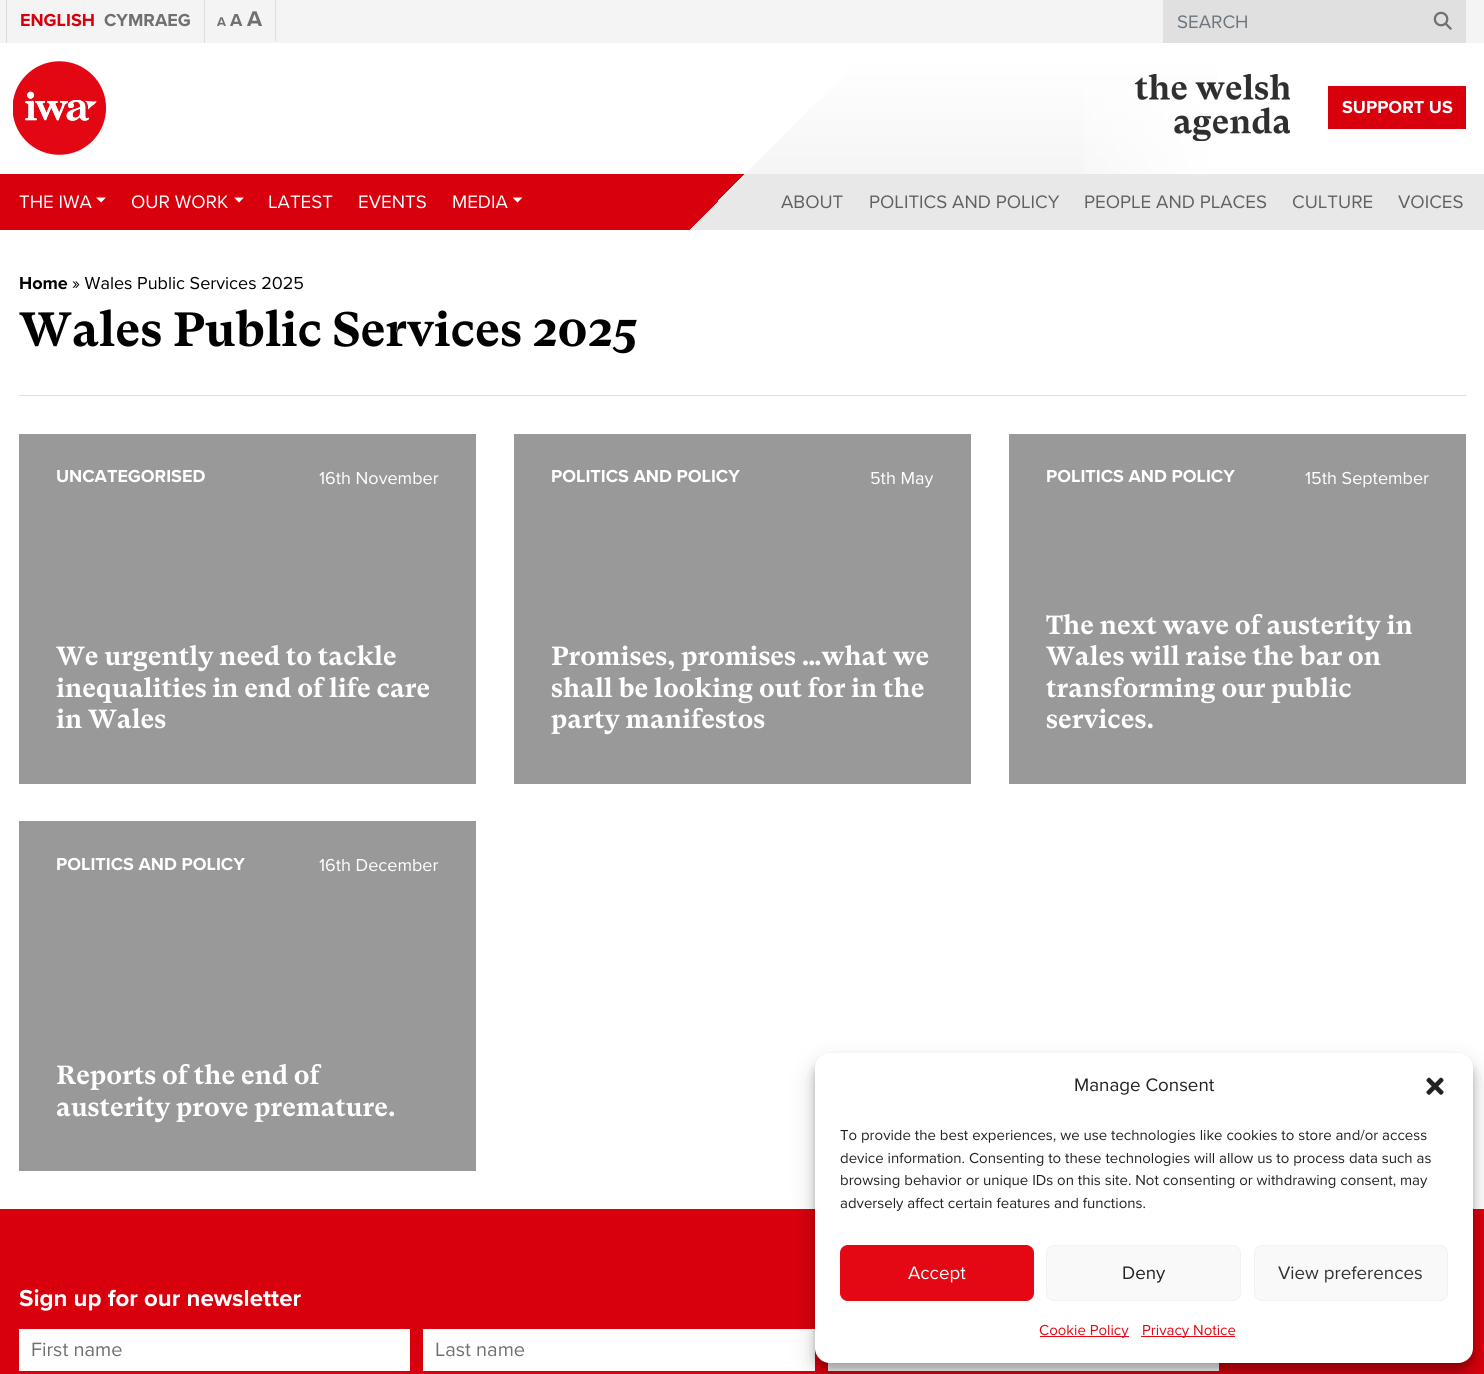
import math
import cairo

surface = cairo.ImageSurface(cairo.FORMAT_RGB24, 1484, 1374)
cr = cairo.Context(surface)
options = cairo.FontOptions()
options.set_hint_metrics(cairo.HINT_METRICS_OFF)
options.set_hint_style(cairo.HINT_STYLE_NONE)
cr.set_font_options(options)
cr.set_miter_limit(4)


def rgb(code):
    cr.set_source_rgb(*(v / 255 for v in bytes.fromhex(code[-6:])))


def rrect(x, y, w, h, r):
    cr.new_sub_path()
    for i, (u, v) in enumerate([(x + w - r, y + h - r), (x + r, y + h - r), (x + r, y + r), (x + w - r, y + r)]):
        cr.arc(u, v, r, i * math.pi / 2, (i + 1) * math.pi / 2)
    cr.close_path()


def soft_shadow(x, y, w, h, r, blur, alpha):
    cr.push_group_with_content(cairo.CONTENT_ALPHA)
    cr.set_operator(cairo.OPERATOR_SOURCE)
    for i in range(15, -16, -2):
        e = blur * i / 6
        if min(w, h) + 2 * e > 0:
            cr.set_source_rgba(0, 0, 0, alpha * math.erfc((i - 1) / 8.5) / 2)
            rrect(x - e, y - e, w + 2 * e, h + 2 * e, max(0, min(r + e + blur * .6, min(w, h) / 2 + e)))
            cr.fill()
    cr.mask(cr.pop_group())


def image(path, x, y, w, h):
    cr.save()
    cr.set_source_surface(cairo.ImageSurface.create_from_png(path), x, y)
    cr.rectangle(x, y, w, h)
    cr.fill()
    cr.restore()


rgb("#ffffff")
cr.paint()
for x, y, w, h, color in [
    (0, 0, 1484, 43, "#f4f4f4"),
    (204, 0, 1, 43, "#dddddd"),
    (6, 0, 1, 43, "#dddddd"),
    (275, 0, 1, 41, "#dddddd"),
    (1163, 0, 303, 43, "#e0e0e0"),
]:
    rgb(color)
    cr.rectangle(x, y, w, h)
    cr.fill()
image("img/1.png", 1433, 11, 19, 19)
image("img/2.png", 13, 61, 93, 94)
gradient = cairo.LinearGradient(982, 43, 982, 174)
gradient.add_color_stop_rgba(0, 1, 1, 1, 1)
gradient.add_color_stop_rgba(0.11, 1, 1, 1, 1)
gradient.add_color_stop_rgba(1, 0.961, 0.961, 0.961, 1)
cr.set_source(gradient)
cr.new_path()
cr.move_to(745, 174)
cr.line_to(876, 43)
cr.line_to(1218, 43)
cr.line_to(1218, 174)
cr.close_path()
cr.fill()
gradient = cairo.LinearGradient(1218, 108, 1037, 108)
gradient.add_color_stop_rgba(0, 1, 1, 1, 1)
gradient.add_color_stop_rgba(1, 1, 1, 1, 0)
cr.set_source(gradient)
cr.rectangle(1084, 87, 134, 87)
cr.fill()
image("img/3.png", 1135, 74, 155, 67)
rgb("#d9000d")
cr.rectangle(1328, 86, 138, 43)
cr.fill()
gradient = cairo.LinearGradient(0, 202, 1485, 202)
gradient.add_color_stop_rgba(0.01, 0.851, 0, 0.051, 1)
gradient.add_color_stop_rgba(0.75, 0.851, 0, 0.051, 1)
gradient.add_color_stop_rgba(0.76, 0.91, 0.91, 0.91, 1)
gradient.add_color_stop_rgba(1, 0.91, 0.91, 0.91, 1)
cr.set_source(gradient)
cr.rectangle(0, 174, 1484, 56)
cr.fill()
rgb("#ffffff")
cr.new_path()
cr.move_to(96, 197.5)
cr.line_to(106, 197.5)
cr.line_to(101, 202.5)
cr.close_path()
cr.fill()
cr.new_path()
cr.move_to(234, 197.5)
cr.line_to(244, 197.5)
cr.line_to(239, 202.5)
cr.close_path()
cr.fill()
cr.new_path()
cr.move_to(512.5, 197.5)
cr.line_to(522.5, 197.5)
cr.line_to(517.5, 202.5)
cr.close_path()
cr.fill()
rgb("#e8e8e8")
cr.rectangle(745, 174, 383, 56)
cr.fill()
gradient = cairo.LinearGradient(689, 174, 746, 229)
gradient.add_color_stop_rgba(0.5, 0.851, 0, 0.051, 1)
gradient.add_color_stop_rgba(0.5, 0.91, 0.91, 0.91, 1)
cr.set_source(gradient)
cr.rectangle(690, 174, 55, 56)
cr.fill()
for x, y, w, h, color in [
    (19, 395, 1447, 1, "#dddddd"),
    (19, 434, 457, 350, "#999999"),
    (514, 434, 457, 350, "#999999"),
    (1009, 434, 457, 350, "#999999"),
    (19, 821, 457, 350, "#999999"),
    (0, 1209, 1484, 165, "#d9000d"),
    (19, 1329, 391, 42, "#ffffff"),
    (423, 1329, 392, 42, "#ffffff"),
    (828, 1362, 391, 9, "#ffffff"),
]:
    rgb(color)
    cr.rectangle(x, y, w, h)
    cr.fill()
rgb("#000000")
soft_shadow(815, 1060, 658, 310, 15, 4, 0.23)
soft_shadow(815, 1065, 658, 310, 15, 12.5, 0.19)
rgb("#ffffff")
rrect(815, 1053, 658, 310, 15)
cr.fill()
image("img/4.png", 1426, 1077, 18, 18)
rgb("#e30813")
rrect(840.5, 1245.5, 193, 55, 7.5)
cr.fill_preserve()
cr.set_line_width(1)
cr.stroke()
rgb("#f9f9f9")
rrect(1046.5, 1245.5, 194, 55, 7.5)
cr.fill_preserve()
rgb("#f2f2f2")
cr.stroke()
rgb("#f9f9f9")
rrect(1254.5, 1245.5, 193, 55, 7.5)
cr.fill_preserve()
rgb("#f2f2f2")
cr.stroke()
rgb("#e30813")
cr.rectangle(1040, 1336, 89, 1)
cr.fill()
cr.rectangle(1141, 1336, 94, 1)
cr.fill()
cr.select_font_face("Proxima Nova", cairo.FONT_SLANT_NORMAL, cairo.FONT_WEIGHT_BOLD)
cr.set_font_size(18)
rgb("#d9000d")
cr.move_to(20, 26)
cr.show_text("ENGLISH")
rgb("#707070")
cr.move_to(104, 26)
cr.show_text("CYMRAEG")
cr.set_font_size(13)
cr.move_to(217, 26)
cr.show_text("A")
cr.set_font_size(18)
cr.move_to(230, 26)
cr.show_text("A")
cr.set_font_size(22)
cr.move_to(247, 26)
cr.show_text("A")
cr.select_font_face("Proxima Nova")
cr.set_font_size(18.75)
rgb("#6c757d")
cr.move_to(1177, 28)
cr.show_text("SEARCH")
cr.select_font_face("Proxima Nova", cairo.FONT_SLANT_NORMAL, cairo.FONT_WEIGHT_BOLD)
cr.set_font_size(18)
rgb("#ffffff")
cr.move_to(1342, 113)
cr.show_text("SUPPORT US")
cr.select_font_face("Proxima Nova")
cr.set_font_size(18.75)
for x, y, s in [
    (19, 208, "THE IWA"),
    (131, 208, "OUR WORK"),
    (268, 208, "LATEST"),
    (358, 208, "EVENTS"),
    (452, 208, "MEDIA"),
]:
    cr.move_to(x, y)
    cr.show_text(s)
rgb("#626161")
for x, y, s in [
    (781, 208, "ABOUT"),
    (869, 208, "POLITICS AND POLICY"),
    (1084, 208, "PEOPLE AND PLACES"),
    (1292, 208, "CULTURE"),
    (1398, 208, "VOICES"),
]:
    cr.move_to(x, y)
    cr.show_text(s)
cr.select_font_face("Proxima Nova", cairo.FONT_SLANT_NORMAL, cairo.FONT_WEIGHT_BOLD)
cr.set_font_size(18)
rgb("#000000")
cr.move_to(19, 289)
cr.show_text("Home")
cr.select_font_face("Proxima Nova")
cr.move_to(72, 289)
cr.show_text("» Wales Public Services 2025")
cr.select_font_face("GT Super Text", cairo.FONT_SLANT_NORMAL, cairo.FONT_WEIGHT_BOLD)
cr.set_font_size(48)
cr.move_to(19, 346)
cr.show_text("Wales Public Services 2025")
cr.select_font_face("Proxima Nova", cairo.FONT_SLANT_NORMAL, cairo.FONT_WEIGHT_BOLD)
cr.set_font_size(18)
rgb("#ffffff")
cr.move_to(56, 482)
cr.show_text("UNCATEGORISED")
cr.select_font_face("Proxima Nova")
cr.move_to(319, 484)
cr.show_text("16th November")
cr.select_font_face("GT Super Text", cairo.FONT_SLANT_NORMAL, cairo.FONT_WEIGHT_BOLD)
cr.set_font_size(26.25)
for x, y, s in [
    (56, 665, "We urgently need to tackle"),
    (56, 697, "inequalities in end of life care"),
    (56, 728, "in Wales"),
]:
    cr.move_to(x, y)
    cr.show_text(s)
cr.select_font_face("Proxima Nova", cairo.FONT_SLANT_NORMAL, cairo.FONT_WEIGHT_BOLD)
cr.set_font_size(18)
cr.move_to(551, 482)
cr.show_text("POLITICS AND POLICY")
cr.select_font_face("Proxima Nova")
cr.move_to(870, 484)
cr.show_text("5th May")
cr.select_font_face("GT Super Text", cairo.FONT_SLANT_NORMAL, cairo.FONT_WEIGHT_BOLD)
cr.set_font_size(26.25)
for x, y, s in [
    (551, 665, "Promises, promises …what we"),
    (551, 697, "shall be looking out for in the"),
    (551, 728, "party manifestos"),
]:
    cr.move_to(x, y)
    cr.show_text(s)
cr.select_font_face("Proxima Nova", cairo.FONT_SLANT_NORMAL, cairo.FONT_WEIGHT_BOLD)
cr.set_font_size(18)
cr.move_to(1046, 482)
cr.show_text("POLITICS AND POLICY")
cr.select_font_face("Proxima Nova")
cr.move_to(1305, 484)
cr.show_text("15th September")
cr.select_font_face("GT Super Text", cairo.FONT_SLANT_NORMAL, cairo.FONT_WEIGHT_BOLD)
cr.set_font_size(26.25)
for x, y, s in [
    (1046, 634, "The next wave of austerity in"),
    (1046, 665, "Wales will raise the bar on"),
    (1046, 697, "transforming our public"),
    (1046, 728, "services."),
]:
    cr.move_to(x, y)
    cr.show_text(s)
cr.select_font_face("Proxima Nova", cairo.FONT_SLANT_NORMAL, cairo.FONT_WEIGHT_BOLD)
cr.set_font_size(18)
cr.move_to(56, 870)
cr.show_text("POLITICS AND POLICY")
cr.select_font_face("Proxima Nova")
cr.move_to(319, 871)
cr.show_text("16th December")
cr.select_font_face("GT Super Text", cairo.FONT_SLANT_NORMAL, cairo.FONT_WEIGHT_BOLD)
cr.set_font_size(26.25)
cr.move_to(56, 1084)
cr.show_text("Reports of the end of")
cr.move_to(56, 1116)
cr.show_text("austerity prove premature.")
cr.select_font_face("Proxima Nova", cairo.FONT_SLANT_NORMAL, cairo.FONT_WEIGHT_BOLD)
cr.set_font_size(24)
cr.move_to(19, 1306)
cr.show_text("Sign up for our newsletter")
cr.select_font_face("Proxima Nova")
cr.set_font_size(20)
rgb("#707070")
cr.move_to(31, 1356)
cr.show_text("First name")
cr.move_to(435, 1356)
cr.show_text("Last name")
cr.set_font_size(18.75)
rgb("#222222")
cr.move_to(1074, 1091)
cr.show_text("Manage Consent")
cr.set_font_size(15)
for x, y, s in [
    (840, 1140, "To provide the best experiences, we use technologies like cookies to store and/or access"),
    (840, 1163, "device information. Consenting to these technologies will allow us to process data such as"),
    (840, 1185, "browsing behavior or unique IDs on this site. Not consenting or withdrawing consent, may"),
    (840, 1208, "adversely affect certain features and functions."),
]:
    cr.move_to(x, y)
    cr.show_text(s)
cr.set_font_size(18.75)
rgb("#ffffff")
cr.move_to(908, 1279)
cr.show_text("Accept")
rgb("#222222")
cr.move_to(1122, 1279)
cr.show_text("Deny")
rgb("#333333")
cr.move_to(1278, 1279)
cr.show_text("View preferences")
cr.set_font_size(15)
rgb("#e30813")
cr.move_to(1039, 1335)
cr.show_text("Cookie Policy")
cr.move_to(1142, 1335)
cr.show_text("Privacy Notice")
surface.write_to_png("page.png")
